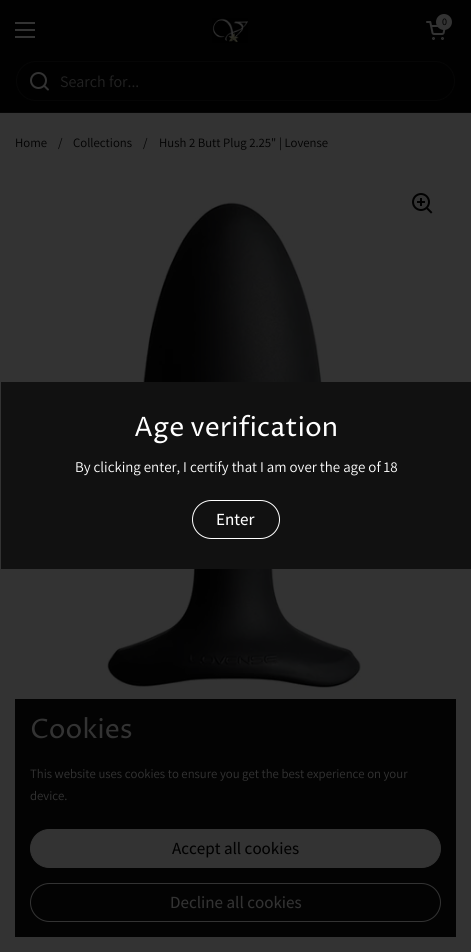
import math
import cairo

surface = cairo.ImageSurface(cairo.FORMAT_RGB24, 471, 952)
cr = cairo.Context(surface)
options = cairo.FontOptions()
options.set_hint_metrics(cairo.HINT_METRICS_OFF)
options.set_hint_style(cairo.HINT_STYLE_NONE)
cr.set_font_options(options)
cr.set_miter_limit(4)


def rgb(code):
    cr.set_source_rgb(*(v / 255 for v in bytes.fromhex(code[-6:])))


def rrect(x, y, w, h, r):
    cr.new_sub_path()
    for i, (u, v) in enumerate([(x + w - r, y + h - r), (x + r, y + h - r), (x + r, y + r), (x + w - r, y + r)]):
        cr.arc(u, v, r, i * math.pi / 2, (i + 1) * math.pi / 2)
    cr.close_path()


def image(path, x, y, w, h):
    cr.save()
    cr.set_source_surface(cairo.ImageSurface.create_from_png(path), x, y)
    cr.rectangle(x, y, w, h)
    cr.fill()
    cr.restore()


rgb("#333333")
cr.paint()
for x, y, w, h, color in [
    (0, 0, 471, 112, "#010101"),
    (15, 22, 20, 2, "#333333"),
    (15, 29, 20, 2, "#333333"),
    (15, 36, 20, 2, "#333333"),
]:
    rgb(color)
    cr.rectangle(x, y, w, h)
    cr.fill()
image("img/1.png", 212, 18, 36, 25)
image("img/2.png", 426, 21, 20, 19)
cr.arc(444, 22, 8, 0, 2 * math.pi)
cr.fill()
rgb("#060606")
cr.rectangle(0, 112, 471, 1)
cr.fill()
rrect(16.5, 61.5, 438, 39, 19.5)
cr.set_line_width(1)
cr.stroke()
image("img/3.png", 30, 72, 19, 19)
image("img/4.png", 107, 202, 254, 486)
image("img/5.png", 412, 193, 21, 21)
rgb("#111111")
cr.rectangle(1, 382, 470, 187)
cr.fill()
rrect(192.5, 500.5, 87, 38, 19)
rgb("#ffffff")
cr.stroke()
rgb("#030303")
cr.rectangle(15, 699, 441, 238)
cr.fill()
rgb("#333333")
rrect(30.5, 829.5, 410, 38, 19)
cr.fill_preserve()
cr.stroke()
rrect(30.5, 883.5, 410, 38, 19)
cr.stroke()
cr.select_font_face("Assistant Medium")
cr.set_font_size(10)
rgb("#010101")
cr.move_to(442, 25)
cr.show_text("0")
cr.select_font_face("Assistant")
cr.set_font_size(16)
rgb("#222222")
cr.move_to(60, 87)
cr.show_text("Search for...")
cr.set_font_size(12.75)
rgb("#010101")
for x, y, s in [
    (15, 147, "Home"),
    (58, 147, "/"),
    (73, 147, "Collections"),
    (143, 147, "/"),
    (159, 147, "Hush 2 Butt Plug 2.25\" | Lovense"),
]:
    cr.move_to(x, y)
    cr.show_text(s)
cr.select_font_face("Proza Libre")
cr.set_font_size(26.75)
rgb("#ffffff")
cr.move_to(134, 436)
cr.show_text("Age verification")
cr.select_font_face("Assistant")
cr.set_font_size(14.9)
cr.move_to(75, 472)
cr.show_text("By clicking enter, I certify that I am over the age of 18")
cr.select_font_face("Assistant Medium")
cr.set_font_size(17)
cr.move_to(216, 525)
cr.show_text("Enter")
cr.select_font_face("Proza Libre")
cr.set_font_size(26.75)
rgb("#333333")
cr.move_to(30, 738)
cr.show_text("Cookies")
cr.select_font_face("Assistant")
cr.set_font_size(12.75)
cr.move_to(30, 778)
cr.show_text("This website uses cookies to ensure you get the best experience on your")
cr.move_to(30, 800)
cr.show_text("device.")
cr.select_font_face("Assistant Medium")
cr.set_font_size(17)
rgb("#010101")
cr.move_to(172, 854)
cr.show_text("Accept all cookies")
rgb("#333333")
cr.move_to(170, 908)
cr.show_text("Decline all cookies")
surface.write_to_png("page.png")
